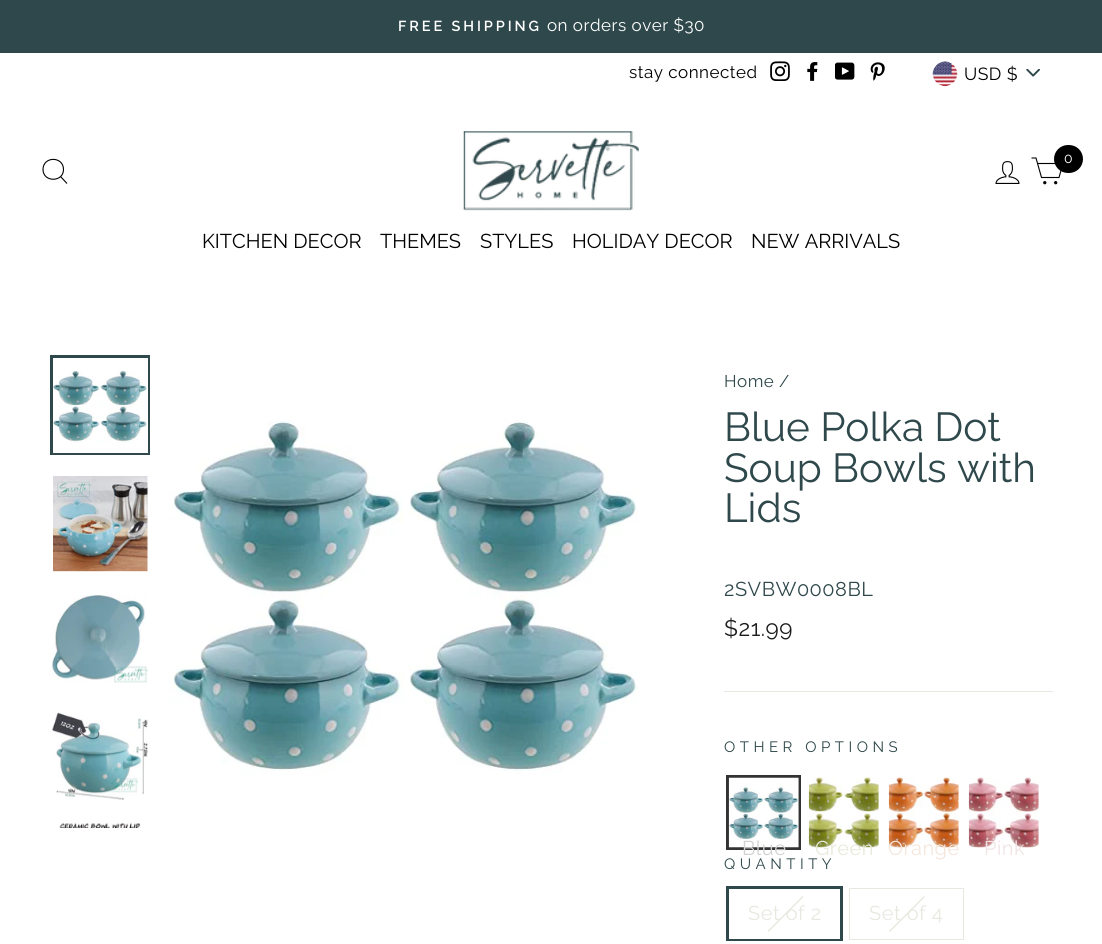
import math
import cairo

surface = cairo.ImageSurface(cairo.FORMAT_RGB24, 1102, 944)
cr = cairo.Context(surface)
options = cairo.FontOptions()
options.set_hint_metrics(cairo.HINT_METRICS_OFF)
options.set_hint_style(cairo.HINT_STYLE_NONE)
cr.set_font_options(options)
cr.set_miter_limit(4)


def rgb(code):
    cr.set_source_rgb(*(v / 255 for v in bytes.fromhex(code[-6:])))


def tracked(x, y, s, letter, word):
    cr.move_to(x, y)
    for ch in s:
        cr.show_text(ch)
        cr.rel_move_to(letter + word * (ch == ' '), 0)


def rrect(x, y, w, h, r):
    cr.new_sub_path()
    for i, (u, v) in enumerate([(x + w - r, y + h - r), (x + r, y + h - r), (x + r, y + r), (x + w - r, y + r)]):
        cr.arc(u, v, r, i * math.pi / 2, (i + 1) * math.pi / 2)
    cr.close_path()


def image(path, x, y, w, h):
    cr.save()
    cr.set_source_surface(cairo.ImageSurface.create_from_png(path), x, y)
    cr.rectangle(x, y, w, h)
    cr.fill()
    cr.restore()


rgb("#ffffff")
cr.paint()
rgb("#2f484b")
cr.rectangle(0, 0, 1102, 53)
cr.fill()
image("img/1.png", 770, 61, 20, 20)
image("img/2.png", 807, 62, 11, 19)
image("img/3.png", 835, 62, 20, 18)
image("img/4.png", 870, 62, 15, 19)
image("img/5.png", 1026, 69, 14, 8)
image("img/6.png", 932, 61, 26, 26)
cr.new_path()
cr.move_to(63.5, 169.5)
cr.curve_to(63.5, 182.5, 43, 182.5, 43, 169.5)
cr.curve_to(43, 156, 63.5, 156, 63.5, 169.5)
cr.close_path()
cr.move_to(67, 183.5)
cr.line_to(60.5, 176.5)
rgb("#000000")
cr.set_line_width(1.1)
cr.stroke()
image("img/7.png", 463, 131, 176, 80)
cr.new_path()
cr.move_to(1037.5, 163.5)
cr.line_to(1063, 163.5)
cr.line_to(1059, 177.5)
cr.line_to(1041.5, 177.5)
cr.line_to(1036, 158)
cr.line_to(1031.5, 158)
cr.stroke()
cr.arc(1044.8, 182.7, 1.1, 0, 2 * math.pi)
cr.fill_preserve()
cr.stroke()
cr.arc(1055.7, 182.7, 1.1, 0, 2 * math.pi)
cr.fill_preserve()
cr.stroke()
rrect(1054, 145, 29, 28, 14)
cr.fill()
image("img/8.png", 995, 161, 25, 23)
cr.rectangle(51.5, 356.5, 97, 97)
rgb("#2f484b")
cr.set_line_width(3)
cr.stroke()
rgb("#ffffff")
cr.rectangle(53, 358, 95, 95)
cr.fill()
image("img/9.png", 53, 370, 94, 73)
image("img/10.png", 53, 476, 95, 96)
image("img/11.png", 52, 595, 96, 88)
image("img/12.png", 52, 712, 96, 88)
image("img/13.png", 59, 823, 82, 5)
image("img/14.png", 169, 420, 469, 355)
rgb("#e8e8e1")
cr.rectangle(724, 691, 329, 1)
cr.fill()
cr.rectangle(727.5, 776.5, 72, 72)
rgb("#333333")
cr.stroke()
image("img/15.png", 728, 777, 71, 71)
image("img/16.png", 808, 777, 71, 71)
image("img/17.png", 888, 777, 71, 71)
image("img/18.png", 968, 777, 71, 71)
cr.rectangle(727.5, 887.5, 114, 52)
rgb("#2f484b")
cr.stroke()
rgb("#ffffff")
cr.rectangle(729, 938, 111, 1)
cr.fill()
rgb("#e8e8e1")
cr.new_path()
cr.move_to(802.5, 896)
cr.line_to(803.5, 897)
cr.line_to(768.5, 932)
cr.line_to(767.5, 931)
cr.close_path()
cr.fill()
cr.rectangle(849.5, 888.5, 114, 51)
cr.set_line_width(1)
cr.stroke()
cr.new_path()
cr.move_to(924, 896)
cr.line_to(925, 897)
cr.line_to(890, 932)
cr.line_to(889, 931)
cr.close_path()
cr.fill()
cr.select_font_face("Raleway SemiBold")
cr.set_font_size(14.5)
rgb("#ffffff")
tracked(398, 31, "FREE SHIPPING", 2.9, 0)
cr.select_font_face("Raleway")
cr.set_font_size(17)
tracked(547, 31, "on orders over $30", 0.5, 0)
rgb("#000000")
tracked(629, 78, "stay connected", 0.5, 0)
cr.set_font_size(17.5)
tracked(964, 80, "USD $", 0.5, 0)
cr.set_font_size(14)
rgb("#ffffff")
cr.move_to(1064, 163)
cr.show_text("0")
cr.set_font_size(20)
rgb("#000000")
for x, y, s in [
    (202, 248, "KITCHEN DECOR"),
    (380, 248, "THEMES"),
    (480, 248, "STYLES"),
    (572, 248, "HOLIDAY DECOR"),
    (751, 248, "NEW ARRIVALS"),
]:
    cr.move_to(x, y)
    cr.show_text(s)
cr.set_font_size(17)
rgb("#2f484b")
tracked(724, 387, "Home /", 0.5, 0)
cr.set_font_size(40.5)
for x, y, s in [
    (724, 441, "Blue Polka Dot"),
    (724, 482, "Soup Bowls with"),
    (724, 522, "Lids"),
]:
    cr.move_to(x, y)
    cr.show_text(s)
cr.set_font_size(20)
tracked(724, 596, "2SVBW0008BL", 0.5, 0)
cr.set_font_size(22.5)
rgb("#1c1d1d")
tracked(724, 636, "$21.99", 0.5, 0)
cr.set_font_size(15)
rgb("#2f484b")
tracked(724, 752, "OTHER OPTIONS", 4.5, 0)
cr.set_font_size(20)
rgb("#d3d3d3")
tracked(742, 855, "Blue", 0.5, 0)
rgb("#e7e9d9")
tracked(815, 855, "Green", 0.5, 0)
rgb("#f5e6dc")
tracked(888, 855, "Orange", 0.5, 0)
rgb("#f1e4e5")
tracked(984, 855, "Pink", 0.5, 0)
cr.set_font_size(15)
rgb("#2f484b")
tracked(724, 869, "QUANTITY", 4.5, 0)
cr.set_font_size(20)
rgb("#e8e8e1")
tracked(748, 920, "Set of 2", 0.5, 0)
tracked(869, 920, "Set of 4", 0.5, 0)
surface.write_to_png("page.png")
